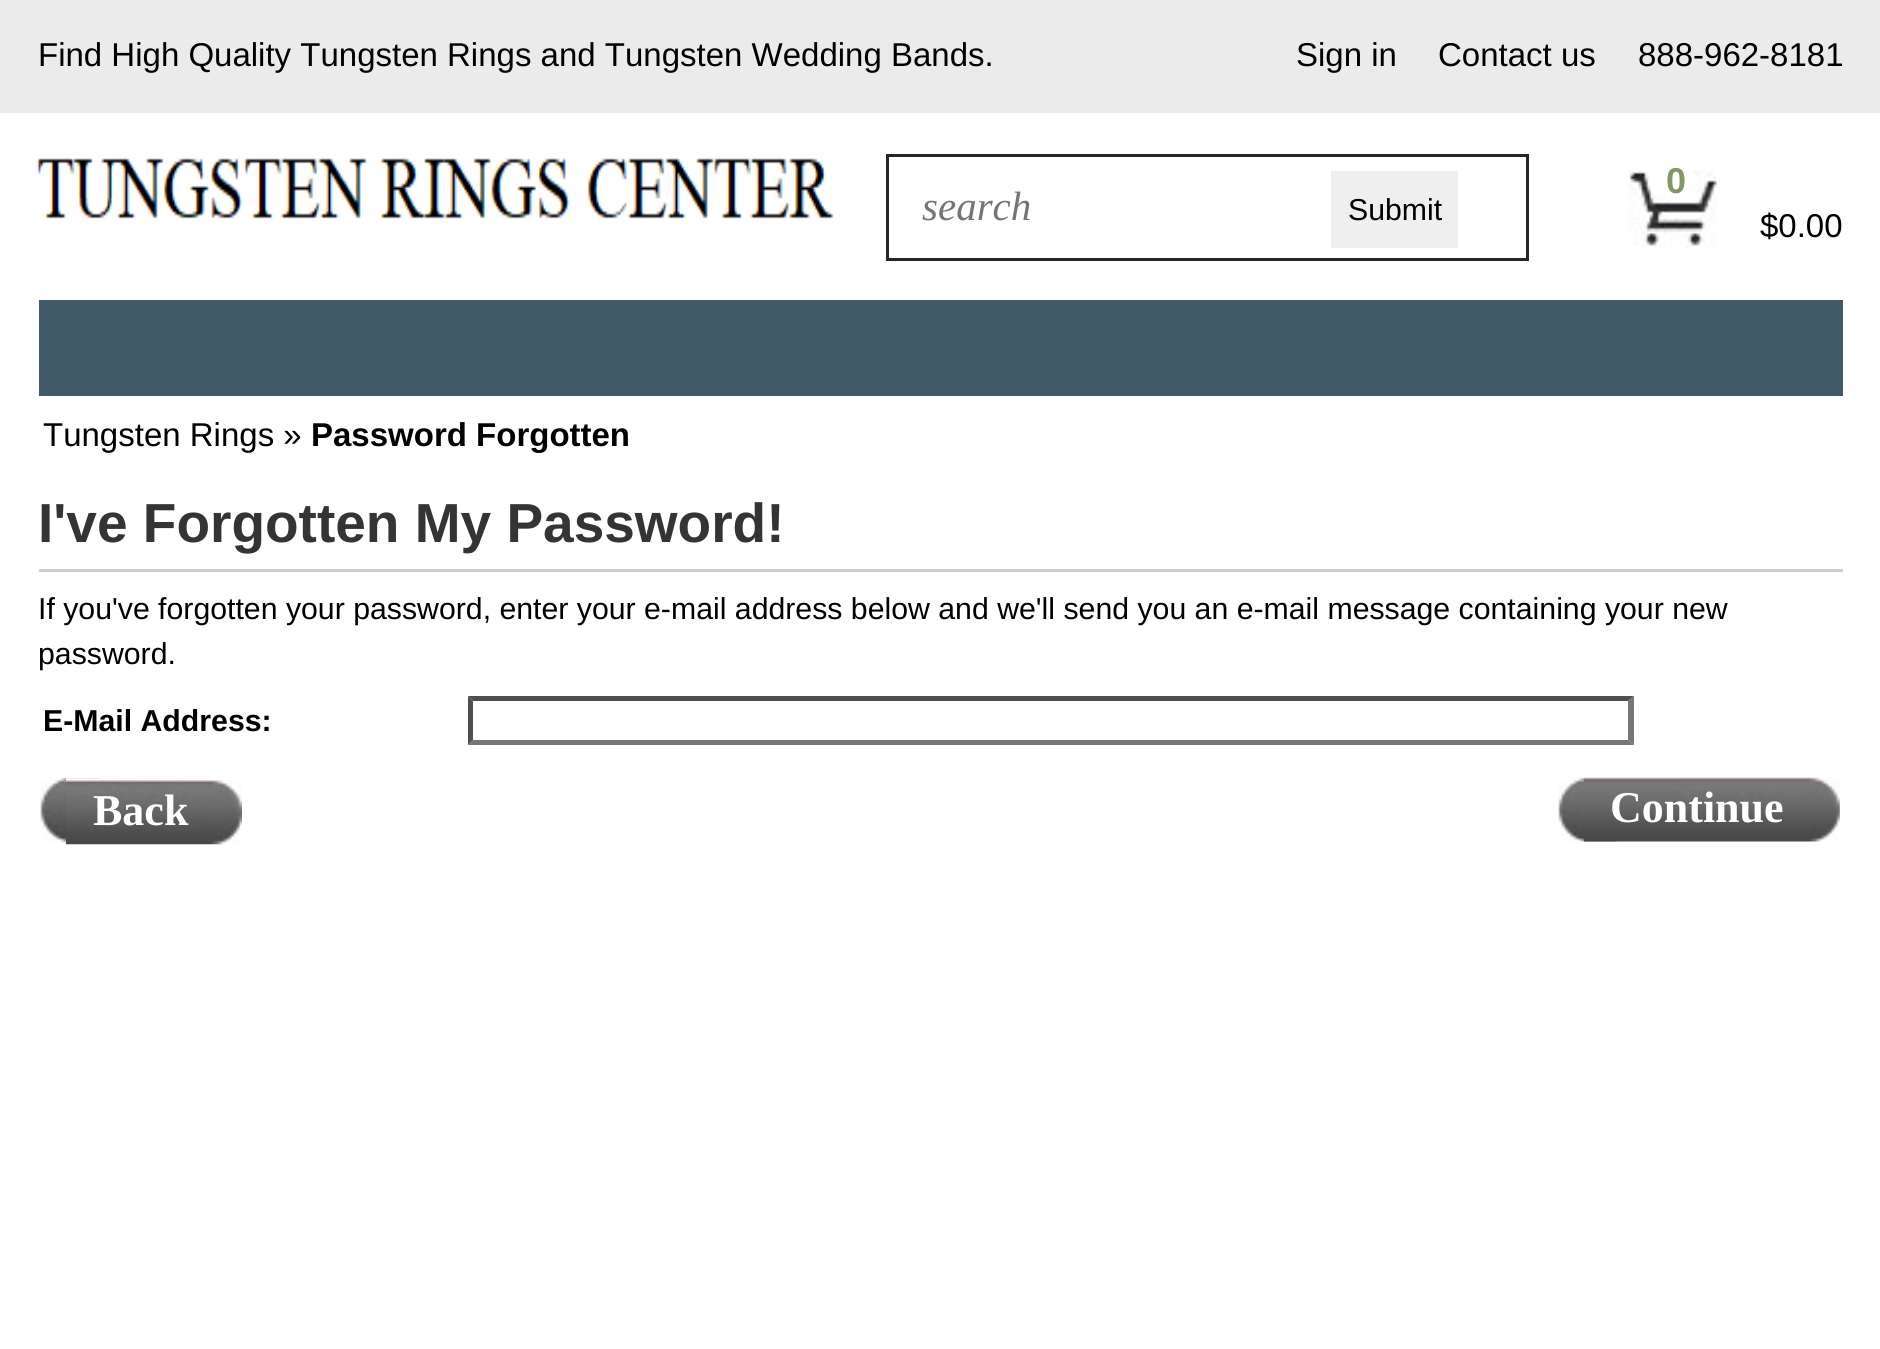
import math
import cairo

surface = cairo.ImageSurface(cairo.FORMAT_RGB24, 1880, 1349)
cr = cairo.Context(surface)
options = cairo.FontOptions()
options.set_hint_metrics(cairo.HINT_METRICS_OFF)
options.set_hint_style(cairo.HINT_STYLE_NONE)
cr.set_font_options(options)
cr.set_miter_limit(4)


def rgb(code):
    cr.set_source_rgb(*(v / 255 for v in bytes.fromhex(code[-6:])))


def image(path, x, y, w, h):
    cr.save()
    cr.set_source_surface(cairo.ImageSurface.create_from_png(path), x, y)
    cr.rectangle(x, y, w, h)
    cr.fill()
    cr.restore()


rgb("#ffffff")
cr.paint()
rgb("#ebebeb")
cr.rectangle(0, 0, 1880, 113)
cr.fill()
image("img/1.png", 38, 158, 796, 61)
cr.rectangle(887.5, 155.5, 640, 104)
rgb("#272525")
cr.set_line_width(3)
cr.stroke()
rgb("#efefef")
cr.rectangle(1331, 171, 127, 77)
cr.fill()
image("img/2.png", 1628, 170, 89, 78)
rgb("#415a68")
cr.rectangle(39, 300, 1804, 96)
cr.fill()
rgb("#cccccc")
cr.rectangle(39, 569, 1804, 3)
cr.fill()
rgb("#4f4f4f")
cr.new_path()
cr.move_to(468, 696)
cr.line_to(1634, 696)
cr.line_to(1628, 701)
cr.line_to(473, 701)
cr.close_path()
cr.fill()
rgb("#767676")
cr.new_path()
cr.move_to(1634, 696)
cr.line_to(1634, 745)
cr.line_to(1628, 740)
cr.line_to(1628, 701)
cr.close_path()
cr.fill()
cr.new_path()
cr.move_to(1634, 745)
cr.line_to(468, 745)
cr.line_to(473, 740)
cr.line_to(1628, 740)
cr.close_path()
cr.fill()
rgb("#4f4f4f")
cr.new_path()
cr.move_to(468, 745)
cr.line_to(468, 696)
cr.line_to(473, 701)
cr.line_to(473, 740)
cr.close_path()
cr.fill()
image("img/3.png", 40, 778, 60, 65)
image("img/4.png", 66, 778, 176, 67)
image("img/5.png", 1558, 778, 60, 64)
image("img/6.png", 1584, 777, 256, 65)
cr.select_font_face("Liberation Sans")
cr.set_font_size(33)
rgb("#000000")
for x, y, s in [
    (38, 66, "Find High Quality Tungsten Rings and Tungsten Wedding Bands."),
    (1296, 66, "Sign in"),
    (1438, 66, "Contact us"),
    (1638, 66, "888-962-8181"),
]:
    cr.move_to(x, y)
    cr.show_text(s)
cr.select_font_face("Liberation Serif", cairo.FONT_SLANT_ITALIC)
cr.set_font_size(41)
rgb("#757575")
cr.move_to(922, 220)
cr.show_text("search")
cr.select_font_face("Liberation Sans")
cr.set_font_size(30.25)
rgb("#000000")
cr.move_to(1348, 220)
cr.show_text("Submit")
cr.select_font_face("Liberation Sans", cairo.FONT_SLANT_NORMAL, cairo.FONT_WEIGHT_BOLD)
cr.set_font_size(36)
rgb("#819865")
cr.move_to(1666, 193)
cr.show_text("0")
cr.select_font_face("Liberation Sans")
cr.set_font_size(33)
rgb("#000000")
cr.move_to(1760, 237)
cr.show_text("$0.00")
cr.move_to(43, 446)
cr.show_text("Tungsten Rings »")
cr.select_font_face("Liberation Sans", cairo.FONT_SLANT_NORMAL, cairo.FONT_WEIGHT_BOLD)
cr.move_to(311, 446)
cr.show_text("Password Forgotten")
cr.set_font_size(55)
rgb("#343434")
cr.move_to(38, 542)
cr.show_text("I've Forgotten My Password!")
cr.select_font_face("Liberation Sans")
cr.set_font_size(30.25)
rgb("#000000")
cr.move_to(38, 619)
cr.show_text("If you've forgotten your password, enter your e-mail address below and we'll send you an e-mail message containing your new")
cr.move_to(38, 664)
cr.show_text("password.")
cr.select_font_face("Liberation Sans", cairo.FONT_SLANT_NORMAL, cairo.FONT_WEIGHT_BOLD)
cr.move_to(43, 731)
cr.show_text("E-Mail Address:")
cr.select_font_face("Liberation Serif", cairo.FONT_SLANT_NORMAL, cairo.FONT_WEIGHT_BOLD)
cr.set_font_size(44)
rgb("#ffffff")
cr.move_to(93, 825)
cr.show_text("Back")
cr.move_to(1610, 822)
cr.show_text("Continue")
surface.write_to_png("page.png")
